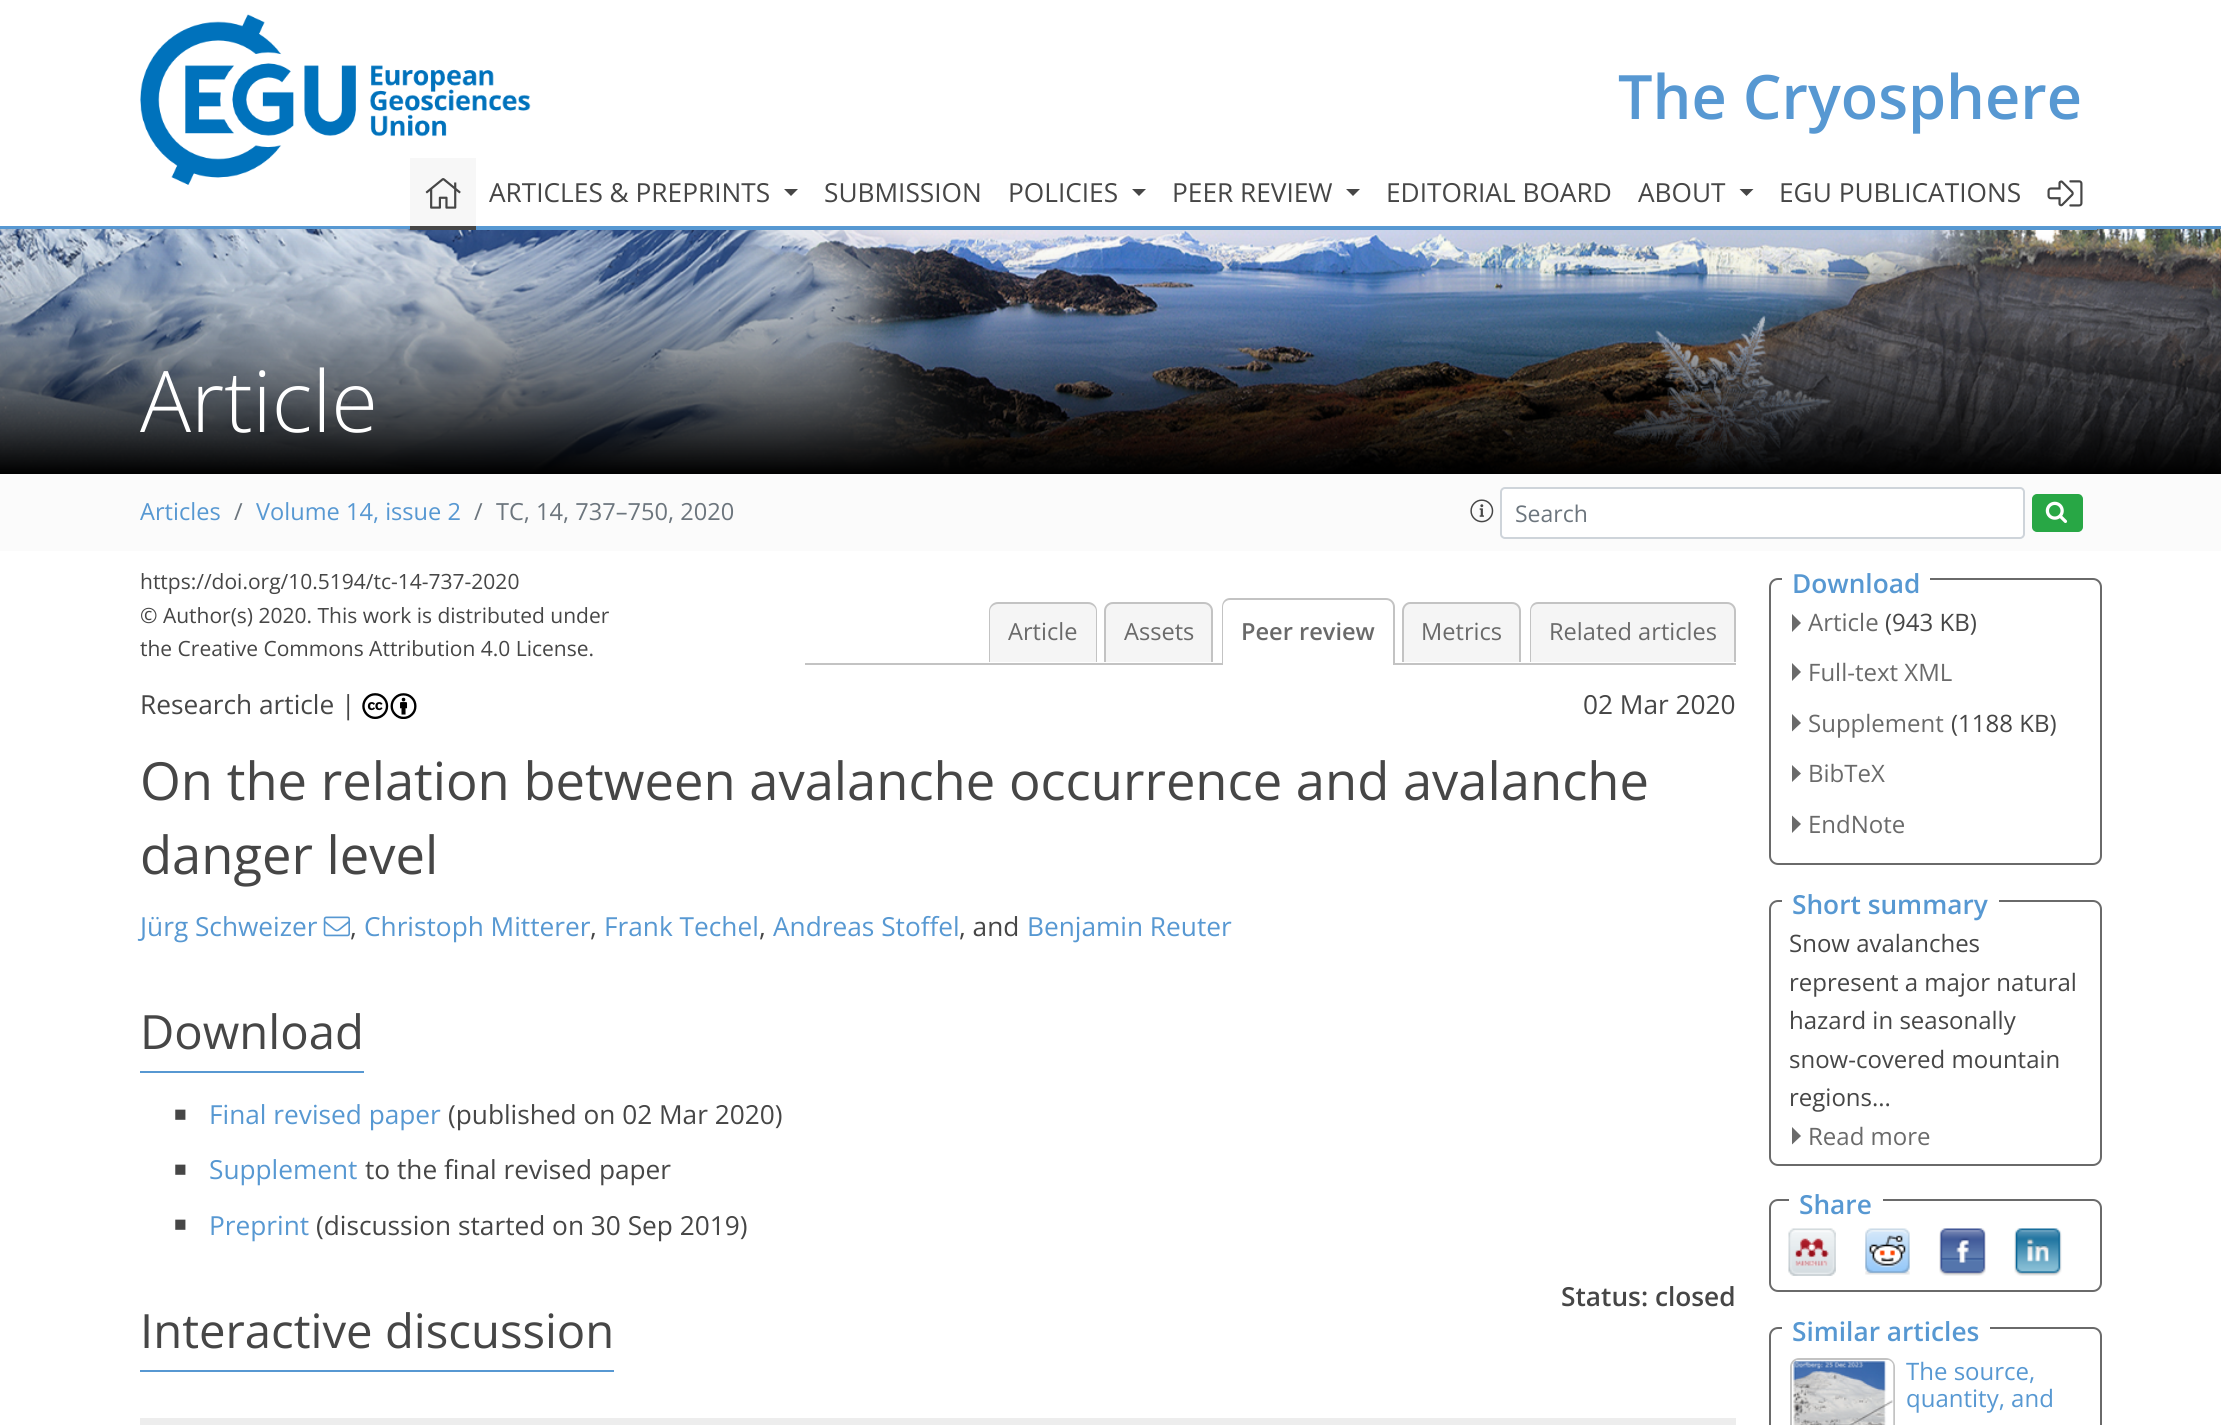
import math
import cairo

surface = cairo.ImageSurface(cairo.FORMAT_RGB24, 2221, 1425)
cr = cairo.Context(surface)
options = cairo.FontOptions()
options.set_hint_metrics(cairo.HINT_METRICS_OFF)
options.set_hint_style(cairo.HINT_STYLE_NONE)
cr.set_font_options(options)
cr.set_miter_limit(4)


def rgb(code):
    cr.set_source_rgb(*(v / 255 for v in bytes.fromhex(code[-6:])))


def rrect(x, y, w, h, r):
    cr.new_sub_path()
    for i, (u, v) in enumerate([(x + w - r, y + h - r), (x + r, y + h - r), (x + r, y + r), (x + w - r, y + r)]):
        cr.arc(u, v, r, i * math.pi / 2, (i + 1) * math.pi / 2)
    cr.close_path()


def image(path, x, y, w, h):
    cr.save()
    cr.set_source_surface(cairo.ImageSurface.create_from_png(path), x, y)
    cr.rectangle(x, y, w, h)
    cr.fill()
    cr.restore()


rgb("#ffffff")
cr.paint()
image("img/1.png", 140, 14, 391, 171)
rgb("#5798d2")
cr.rectangle(0, 226, 2221, 3)
cr.fill()
rgb("#f7f7f7")
cr.rectangle(410, 158, 66, 68)
cr.fill()
image("img/4.png", 0, 229, 2221, 245)
rgb("#464646")
cr.rectangle(410, 226, 66, 4)
cr.fill()
image("img/2.png", 425, 178, 36, 31)
rgb("#5798d2")
cr.rectangle(476, 229, 1621, 1)
cr.fill()
rgb("#464646")
cr.new_path()
cr.move_to(784, 189)
cr.line_to(798, 189)
cr.line_to(791, 196)
cr.close_path()
cr.fill()
cr.new_path()
cr.move_to(1132, 189)
cr.line_to(1146, 189)
cr.line_to(1139, 196)
cr.close_path()
cr.fill()
cr.new_path()
cr.move_to(1346, 189)
cr.line_to(1360, 189)
cr.line_to(1353, 196)
cr.close_path()
cr.fill()
cr.new_path()
cr.move_to(1739.5, 189)
cr.line_to(1753.5, 189)
cr.line_to(1746.5, 196)
cr.close_path()
cr.fill()
image("img/3.png", 2047, 180, 36, 27)
rgb("#fbfbfb")
cr.rectangle(0, 474, 2221, 77)
cr.fill()
image("img/5.png", 1470, 499, 24, 24)
rgb("#ffffff")
rrect(1501, 488, 523, 50, 4)
cr.fill_preserve()
rgb("#ced4da")
cr.stroke()
rgb("#28a745")
rrect(2033, 495, 49, 36, 4)
cr.fill_preserve()
cr.stroke()
image("img/6.png", 2045, 501, 23, 22)
rgb("#c3c3c3")
cr.rectangle(805, 663, 931, 2)
cr.fill()
rgb("#f5f5f5")
cr.new_path()
cr.move_to(998, 602)
cr.line_to(1088, 602)
cr.curve_to(1093, 602, 1097, 606, 1097, 611)
cr.line_to(1097, 662)
cr.line_to(989, 662)
cr.line_to(989, 611)
cr.curve_to(989, 606, 993, 602, 998, 602)
cr.close_path()
cr.fill()
rgb("#c3c3c3")
cr.set_fill_rule(cairo.FILL_RULE_EVEN_ODD)
cr.new_path()
cr.move_to(998, 602)
cr.line_to(1088, 602)
cr.curve_to(1093, 602, 1097, 606, 1097, 611)
cr.line_to(1097, 662)
cr.line_to(989, 662)
cr.line_to(989, 611)
cr.curve_to(989, 606, 993, 602, 998, 602)
cr.close_path()
cr.move_to(998, 604)
cr.line_to(1088, 604)
cr.curve_to(1092, 604, 1096, 607, 1096, 611)
cr.line_to(1096, 662)
cr.line_to(990, 662)
cr.line_to(990, 611)
cr.curve_to(990, 607, 994, 604, 998, 604)
cr.close_path()
cr.fill()
rgb("#f5f5f5")
cr.new_path()
cr.move_to(1113, 602)
cr.line_to(1204, 602)
cr.curve_to(1209, 602, 1213, 606, 1213, 611)
cr.line_to(1213, 662)
cr.line_to(1104, 662)
cr.line_to(1104, 611)
cr.curve_to(1104, 606, 1108, 602, 1113, 602)
cr.close_path()
cr.fill()
rgb("#c3c3c3")
cr.new_path()
cr.move_to(1113, 602)
cr.line_to(1204, 602)
cr.curve_to(1209, 602, 1213, 606, 1213, 611)
cr.line_to(1213, 662)
cr.line_to(1104, 662)
cr.line_to(1104, 611)
cr.curve_to(1104, 606, 1108, 602, 1113, 602)
cr.close_path()
cr.move_to(1113, 604)
cr.line_to(1204, 604)
cr.curve_to(1208, 604, 1211, 607, 1211, 611)
cr.line_to(1211, 662)
cr.line_to(1106, 662)
cr.line_to(1106, 611)
cr.curve_to(1106, 607, 1109, 604, 1113, 604)
cr.close_path()
cr.fill()
rgb("#ffffff")
cr.new_path()
cr.move_to(1231, 599)
cr.line_to(1386, 599)
cr.curve_to(1391, 599, 1395, 603, 1395, 608)
cr.line_to(1395, 665)
cr.line_to(1222, 665)
cr.line_to(1222, 608)
cr.curve_to(1222, 603, 1226, 599, 1231, 599)
cr.close_path()
cr.fill()
rgb("#c3c3c3")
cr.new_path()
cr.move_to(1230, 598)
cr.line_to(1386, 598)
cr.curve_to(1391, 598, 1395, 602, 1395, 607)
cr.line_to(1395, 665)
cr.line_to(1222, 665)
cr.line_to(1222, 607)
cr.curve_to(1222, 602, 1225, 598, 1230, 598)
cr.close_path()
cr.move_to(1230, 600)
cr.line_to(1386, 600)
cr.curve_to(1390, 600, 1393, 603, 1393, 607)
cr.line_to(1393, 665)
cr.line_to(1223, 665)
cr.line_to(1223, 607)
cr.curve_to(1223, 603, 1226, 600, 1230, 600)
cr.close_path()
cr.fill()
rgb("#f5f5f5")
cr.new_path()
cr.move_to(1411, 602)
cr.line_to(1512, 602)
cr.curve_to(1517, 602, 1521, 606, 1521, 611)
cr.line_to(1521, 662)
cr.line_to(1402, 662)
cr.line_to(1402, 611)
cr.curve_to(1402, 606, 1406, 602, 1411, 602)
cr.close_path()
cr.fill()
rgb("#c3c3c3")
cr.new_path()
cr.move_to(1410, 602)
cr.line_to(1512, 602)
cr.curve_to(1517, 602, 1521, 606, 1521, 611)
cr.line_to(1521, 662)
cr.line_to(1402, 662)
cr.line_to(1402, 611)
cr.curve_to(1402, 606, 1406, 602, 1410, 602)
cr.close_path()
cr.move_to(1410, 604)
cr.line_to(1512, 604)
cr.curve_to(1516, 604, 1519, 607, 1519, 611)
cr.line_to(1519, 662)
cr.line_to(1404, 662)
cr.line_to(1404, 611)
cr.curve_to(1404, 607, 1407, 604, 1410, 604)
cr.close_path()
cr.fill()
rgb("#f5f5f5")
cr.new_path()
cr.move_to(1539, 602)
cr.line_to(1727, 602)
cr.curve_to(1732, 602, 1736, 606, 1736, 611)
cr.line_to(1736, 662)
cr.line_to(1530, 662)
cr.line_to(1530, 611)
cr.curve_to(1530, 606, 1534, 602, 1539, 602)
cr.close_path()
cr.fill()
rgb("#c3c3c3")
cr.new_path()
cr.move_to(1538, 602)
cr.line_to(1727, 602)
cr.curve_to(1732, 602, 1736, 606, 1736, 611)
cr.line_to(1736, 662)
cr.line_to(1530, 662)
cr.line_to(1530, 611)
cr.curve_to(1530, 606, 1533, 602, 1538, 602)
cr.close_path()
cr.move_to(1538, 604)
cr.line_to(1727, 604)
cr.curve_to(1731, 604, 1734, 607, 1734, 611)
cr.line_to(1734, 662)
cr.line_to(1531, 662)
cr.line_to(1531, 611)
cr.curve_to(1531, 607, 1534, 604, 1538, 604)
cr.close_path()
cr.fill()
image("img/7.png", 362, 693, 55, 26)
image("img/8.png", 323, 916, 27, 21)
for x, y, w, h, color in [
    (140, 1071, 224, 2, "#5798d2"),
    (140, 1370, 474, 2, "#5798d2"),
    (140, 1418, 1596, 7, "#ededed"),
]:
    rgb(color)
    cr.rectangle(x, y, w, h)
    cr.fill()
rrect(1770, 579, 331, 285, 8)
rgb("#6a6a6a")
cr.stroke()
rgb("#ffffff")
cr.rectangle(1782, 578, 148, 2)
cr.fill()
rgb("#6a6a6a")
cr.set_fill_rule(cairo.FILL_RULE_WINDING)
cr.new_path()
cr.move_to(1792, 632)
cr.line_to(1792, 614)
cr.line_to(1801, 623)
cr.close_path()
cr.fill()
cr.new_path()
cr.move_to(1792, 681)
cr.line_to(1792, 663)
cr.line_to(1801, 672)
cr.close_path()
cr.fill()
cr.new_path()
cr.move_to(1792, 731.5)
cr.line_to(1792, 714)
cr.line_to(1801, 723)
cr.close_path()
cr.fill()
cr.new_path()
cr.move_to(1792, 782)
cr.line_to(1792, 765)
cr.line_to(1801, 773.5)
cr.close_path()
cr.fill()
cr.new_path()
cr.move_to(1792, 833)
cr.line_to(1792, 815.5)
cr.line_to(1801, 824)
cr.close_path()
cr.fill()
rrect(1770, 901, 331, 264, 8)
cr.stroke()
rgb("#ffffff")
cr.rectangle(1782, 900, 217, 2)
cr.fill()
rgb("#6a6a6a")
cr.new_path()
cr.move_to(1792, 1144.5)
cr.line_to(1792, 1127)
cr.line_to(1801, 1136)
cr.close_path()
cr.fill()
rrect(1770, 1200, 331, 91, 8)
cr.stroke()
rgb("#ffffff")
cr.rectangle(1789, 1199, 94, 2)
cr.fill()
image("img/9.png", 1788, 1228, 48, 48)
image("img/10.png", 1865, 1228, 45, 47)
image("img/11.png", 1939, 1228, 47, 48)
image("img/12.png", 2014, 1228, 48, 48)
rrect(1770, 1328, 331, 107, 8)
rgb("#6a6a6a")
cr.stroke()
rgb("#ffffff")
cr.rectangle(1782, 1327, 208, 2)
cr.fill()
rrect(1791, 1359, 103, 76, 8)
rgb("#c3c3c3")
cr.stroke()
image("img/13.png", 1792, 1360, 102, 65)
cr.select_font_face("Open Sans SemiBold")
cr.set_font_size(61.25)
rgb("#5798d2")
cr.move_to(1618, 119)
cr.show_text("The Cryosphere")
cr.select_font_face("Open Sans")
cr.set_font_size(26.25)
rgb("#464646")
for x, y, s in [
    (489, 202, "ARTICLES & PREPRINTS"),
    (824, 202, "SUBMISSION"),
    (1008, 202, "POLICIES"),
    (1172, 202, "PEER REVIEW"),
    (1386, 202, "EDITORIAL BOARD"),
    (1638, 202, "ABOUT"),
    (1779, 202, "EGU PUBLICATIONS"),
]:
    cr.move_to(x, y)
    cr.show_text(s)
cr.select_font_face("Open Sans Light")
cr.set_font_size(85)
rgb("#ffffff")
cr.move_to(140, 432)
cr.show_text("Article")
cr.select_font_face("Open Sans")
cr.set_font_size(23.6)
rgb("#5798d2")
cr.move_to(140, 520)
cr.show_text("Articles")
rgb("#6c757d")
cr.move_to(234, 520)
cr.show_text("/")
rgb("#5798d2")
cr.move_to(256, 520)
cr.show_text("Volume 14, issue 2")
rgb("#6c757d")
cr.move_to(474, 520)
cr.show_text("/")
cr.move_to(496, 520)
cr.show_text("TC, 14, 737–750, 2020")
cr.set_font_size(23)
cr.move_to(1515, 522)
cr.show_text("Search")
cr.set_font_size(21)
rgb("#464646")
for x, y, s in [
    (140, 589, "https://doi.org/10.5194/tc-14-737-2020"),
    (140, 623, "© Author(s) 2020. This work is distributed under"),
    (140, 656, "the Creative Commons Attribution 4.0 License."),
]:
    cr.move_to(x, y)
    cr.show_text(s)
cr.set_font_size(23.6)
rgb("#6a6a6a")
cr.move_to(1008, 640)
cr.show_text("Article")
cr.move_to(1124, 640)
cr.show_text("Assets")
cr.select_font_face("Open Sans SemiBold")
cr.move_to(1241, 640)
cr.show_text("Peer review")
cr.select_font_face("Open Sans")
cr.move_to(1421, 640)
cr.show_text("Metrics")
cr.move_to(1549, 640)
cr.show_text("Related articles")
cr.set_font_size(26.25)
rgb("#464646")
cr.move_to(140, 714)
cr.show_text("Research article |")
cr.move_to(1583, 714)
cr.show_text("02 Mar 2020")
cr.set_font_size(52.5)
cr.move_to(140, 800)
cr.show_text("On the relation between avalanche occurrence and avalanche")
cr.move_to(140, 874)
cr.show_text("danger level")
cr.set_font_size(26.25)
rgb("#5798d2")
cr.move_to(140, 936)
cr.show_text("Jürg Schweizer")
rgb("#464646")
cr.move_to(350, 936)
cr.show_text(",")
rgb("#5798d2")
cr.move_to(364, 936)
cr.show_text("Christoph Mitterer")
rgb("#464646")
cr.move_to(590, 936)
cr.show_text(",")
rgb("#5798d2")
cr.move_to(604, 936)
cr.show_text("Frank Techel")
rgb("#464646")
cr.move_to(759, 936)
cr.show_text(",")
rgb("#5798d2")
cr.move_to(773, 936)
cr.show_text("Andreas Stoffel")
rgb("#464646")
cr.move_to(959, 936)
cr.show_text(", and")
rgb("#5798d2")
cr.move_to(1027, 936)
cr.show_text("Benjamin Reuter")
cr.set_font_size(47.25)
rgb("#464646")
cr.move_to(140, 1049)
cr.show_text("Download")
cr.select_font_face("Liberation Sans")
cr.set_font_size(21)
cr.move_to(174, 1121)
cr.show_text("■")
cr.select_font_face("Open Sans")
cr.set_font_size(26.25)
rgb("#5798d2")
cr.move_to(209, 1124)
cr.show_text("Final revised paper")
rgb("#464646")
cr.move_to(448, 1124)
cr.show_text("(published on 02 Mar 2020)")
cr.select_font_face("Liberation Sans")
cr.set_font_size(21)
cr.move_to(174, 1176)
cr.show_text("■")
cr.select_font_face("Open Sans")
cr.set_font_size(26.25)
rgb("#5798d2")
cr.move_to(209, 1179)
cr.show_text("Supplement")
rgb("#464646")
cr.move_to(365, 1179)
cr.show_text("to the final revised paper")
cr.select_font_face("Liberation Sans")
cr.set_font_size(21)
cr.move_to(174, 1231)
cr.show_text("■")
cr.select_font_face("Open Sans")
cr.set_font_size(26.25)
rgb("#5798d2")
cr.move_to(209, 1235)
cr.show_text("Preprint")
rgb("#464646")
cr.move_to(316, 1235)
cr.show_text("(discussion started on 30 Sep 2019)")
cr.select_font_face("Open Sans SemiBold")
cr.move_to(1561, 1306)
cr.show_text("Status: closed")
cr.select_font_face("Open Sans")
cr.set_font_size(47.25)
cr.move_to(140, 1348)
cr.show_text("Interactive discussion")
cr.select_font_face("Open Sans SemiBold")
cr.set_font_size(26.25)
rgb("#5798d2")
cr.move_to(1792, 593)
cr.show_text("Download")
cr.select_font_face("Open Sans")
cr.set_font_size(24)
rgb("#6a6a6a")
cr.move_to(1808, 631)
cr.show_text("Article")
rgb("#464646")
cr.move_to(1885, 631)
cr.show_text("(943 KB)")
rgb("#6a6a6a")
cr.move_to(1808, 681)
cr.show_text("Full-text XML")
cr.move_to(1808, 732)
cr.show_text("Supplement")
rgb("#464646")
cr.move_to(1951, 732)
cr.show_text("(1188 KB)")
rgb("#6a6a6a")
cr.move_to(1808, 782)
cr.show_text("BibTeX")
cr.move_to(1808, 833)
cr.show_text("EndNote")
cr.select_font_face("Open Sans SemiBold")
cr.set_font_size(26.25)
rgb("#5798d2")
cr.move_to(1792, 914)
cr.show_text("Short summary")
cr.select_font_face("Open Sans")
cr.set_font_size(24)
rgb("#464646")
for x, y, s in [
    (1789, 952, "Snow avalanches"),
    (1789, 991, "represent a major natural"),
    (1789, 1029, "hazard in seasonally"),
    (1789, 1068, "snow-covered mountain"),
    (1789, 1106, "regions..."),
]:
    cr.move_to(x, y)
    cr.show_text(s)
rgb("#6a6a6a")
cr.move_to(1808, 1145)
cr.show_text("Read more")
cr.select_font_face("Open Sans SemiBold")
cr.set_font_size(26.25)
rgb("#5798d2")
cr.move_to(1799, 1214)
cr.show_text("Share")
cr.move_to(1792, 1341)
cr.show_text("Similar articles")
cr.select_font_face("Open Sans")
cr.set_font_size(24)
cr.move_to(1906, 1380)
cr.show_text("The source,")
cr.move_to(1906, 1407)
cr.show_text("quantity, and")
surface.write_to_png("page.png")
